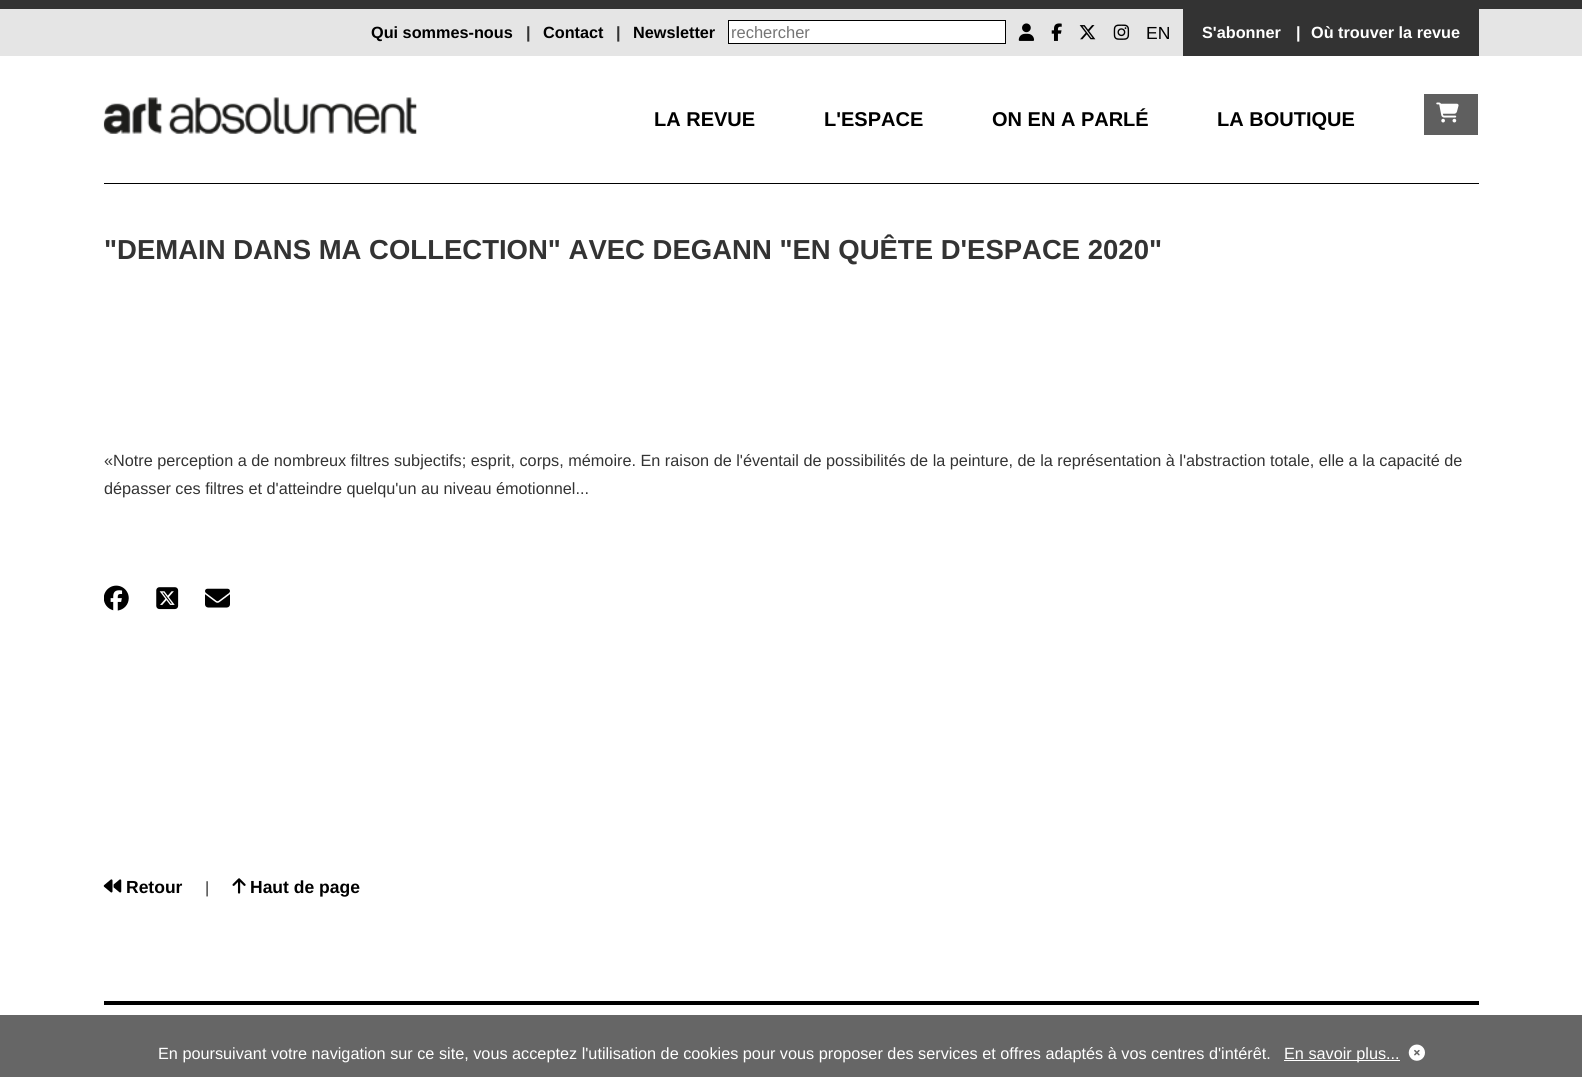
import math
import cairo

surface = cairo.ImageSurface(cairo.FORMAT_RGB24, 1582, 1077)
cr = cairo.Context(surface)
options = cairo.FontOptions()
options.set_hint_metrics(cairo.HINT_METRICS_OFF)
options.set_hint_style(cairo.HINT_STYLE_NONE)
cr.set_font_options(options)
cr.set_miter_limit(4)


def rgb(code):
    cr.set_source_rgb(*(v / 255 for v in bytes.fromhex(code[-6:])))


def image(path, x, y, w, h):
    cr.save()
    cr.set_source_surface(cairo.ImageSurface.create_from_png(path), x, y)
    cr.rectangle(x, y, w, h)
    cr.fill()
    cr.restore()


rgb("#ffffff")
cr.paint()
rgb("#333333")
cr.rectangle(0, 0, 1582, 9)
cr.fill()
rgb("#e5e5e5")
cr.rectangle(0, 9, 1582, 47)
cr.fill()
rgb("#ffffff")
cr.rectangle(728.5, 20.5, 277, 23)
cr.fill_preserve()
rgb("#000000")
cr.set_line_width(1)
cr.stroke()
image("img/1.png", 1018, 23, 17, 18)
image("img/2.png", 1051, 23, 11, 18)
image("img/3.png", 1079, 25, 17, 15)
image("img/4.png", 1113, 24, 17, 16)
rgb("#333333")
cr.rectangle(1183, 9, 296, 47)
cr.fill()
rgb("#000000")
cr.rectangle(104, 183, 1375, 1)
cr.fill()
image("img/5.png", 103, 97, 314, 37)
rgb("#5f5f5f")
cr.rectangle(1424, 94, 54, 41)
cr.fill()
image("img/6.png", 1436, 102, 23, 21)
image("img/7.png", 104, 585, 25, 26)
image("img/8.png", 156, 587, 23, 23)
image("img/9.png", 205, 588, 25, 20)
image("img/10.png", 103, 879, 19, 14)
image("img/11.png", 232, 878, 14, 16)
for x, y, w, h, color in [
    (104, 1001, 1375, 4, "#000000"),
    (0, 1015, 1582, 62, "#666666"),
    (1284, 1060, 116, 1, "#ffffff"),
]:
    rgb(color)
    cr.rectangle(x, y, w, h)
    cr.fill()
image("img/12.png", 1408, 1044, 17, 17)
cr.select_font_face("Liberation Sans", cairo.FONT_SLANT_NORMAL, cairo.FONT_WEIGHT_BOLD)
cr.set_font_size(16.25)
rgb("#000000")
cr.move_to(371, 38)
cr.show_text("Qui sommes-nous")
rgb("#333333")
cr.move_to(526, 38)
cr.show_text("|")
rgb("#000000")
cr.move_to(543, 38)
cr.show_text("Contact")
rgb("#333333")
cr.move_to(616, 38)
cr.show_text("|")
rgb("#000000")
cr.move_to(633, 38)
cr.show_text("Newsletter")
cr.select_font_face("Liberation Sans")
cr.set_font_size(16.5)
rgb("#757575")
cr.move_to(731, 38)
cr.show_text("rechercher")
cr.set_font_size(17.5)
rgb("#000000")
cr.move_to(1146, 39)
cr.show_text("EN")
cr.select_font_face("Liberation Sans", cairo.FONT_SLANT_NORMAL, cairo.FONT_WEIGHT_BOLD)
cr.set_font_size(16.25)
rgb("#ffffff")
for x, y, s in [
    (1202, 38, "S'abonner"),
    (1296, 38, "|"),
    (1311, 38, "Où trouver la revue"),
]:
    cr.move_to(x, y)
    cr.show_text(s)
cr.set_font_size(20)
rgb("#000000")
for x, y, s in [
    (654, 126, "LA REVUE"),
    (824, 126, "L'ESPACE"),
    (992, 126, "ON EN A PARLÉ"),
    (1217, 126, "LA BOUTIQUE"),
]:
    cr.move_to(x, y)
    cr.show_text(s)
cr.set_font_size(27.5)
rgb("#333333")
cr.move_to(104, 259)
cr.show_text("\"DEMAIN DANS MA COLLECTION\" AVEC DEGANN \"EN QUÊTE D'ESPACE 2020\"")
cr.select_font_face("Liberation Sans")
cr.set_font_size(16.25)
cr.move_to(104, 466)
cr.show_text("«Notre perception a de nombreux filtres subjectifs; esprit, corps, mémoire. En raison de l'éventail de possibilités de la peinture, de la représentation à l'abstraction totale, elle a la capacité de")
cr.move_to(104, 494)
cr.show_text("dépasser ces filtres et d'atteindre quelqu'un au niveau émotionnel...")
cr.select_font_face("Liberation Sans", cairo.FONT_SLANT_NORMAL, cairo.FONT_WEIGHT_BOLD)
cr.set_font_size(17.5)
rgb("#000000")
cr.move_to(126, 893)
cr.show_text("Retour")
cr.select_font_face("Liberation Sans")
cr.set_font_size(16.25)
rgb("#333333")
cr.move_to(205, 893)
cr.show_text("|")
cr.select_font_face("Liberation Sans", cairo.FONT_SLANT_NORMAL, cairo.FONT_WEIGHT_BOLD)
cr.set_font_size(17.5)
rgb("#000000")
cr.move_to(250, 893)
cr.show_text("Haut de page")
cr.select_font_face("Liberation Sans")
cr.set_font_size(16.25)
rgb("#ffffff")
cr.move_to(158, 1059)
cr.show_text("En poursuivant votre navigation sur ce site, vous acceptez l'utilisation de cookies pour vous proposer des services et offres adaptés à vos centres d'intérêt.")
cr.move_to(1284, 1059)
cr.show_text("En savoir plus...")
surface.write_to_png("page.png")
